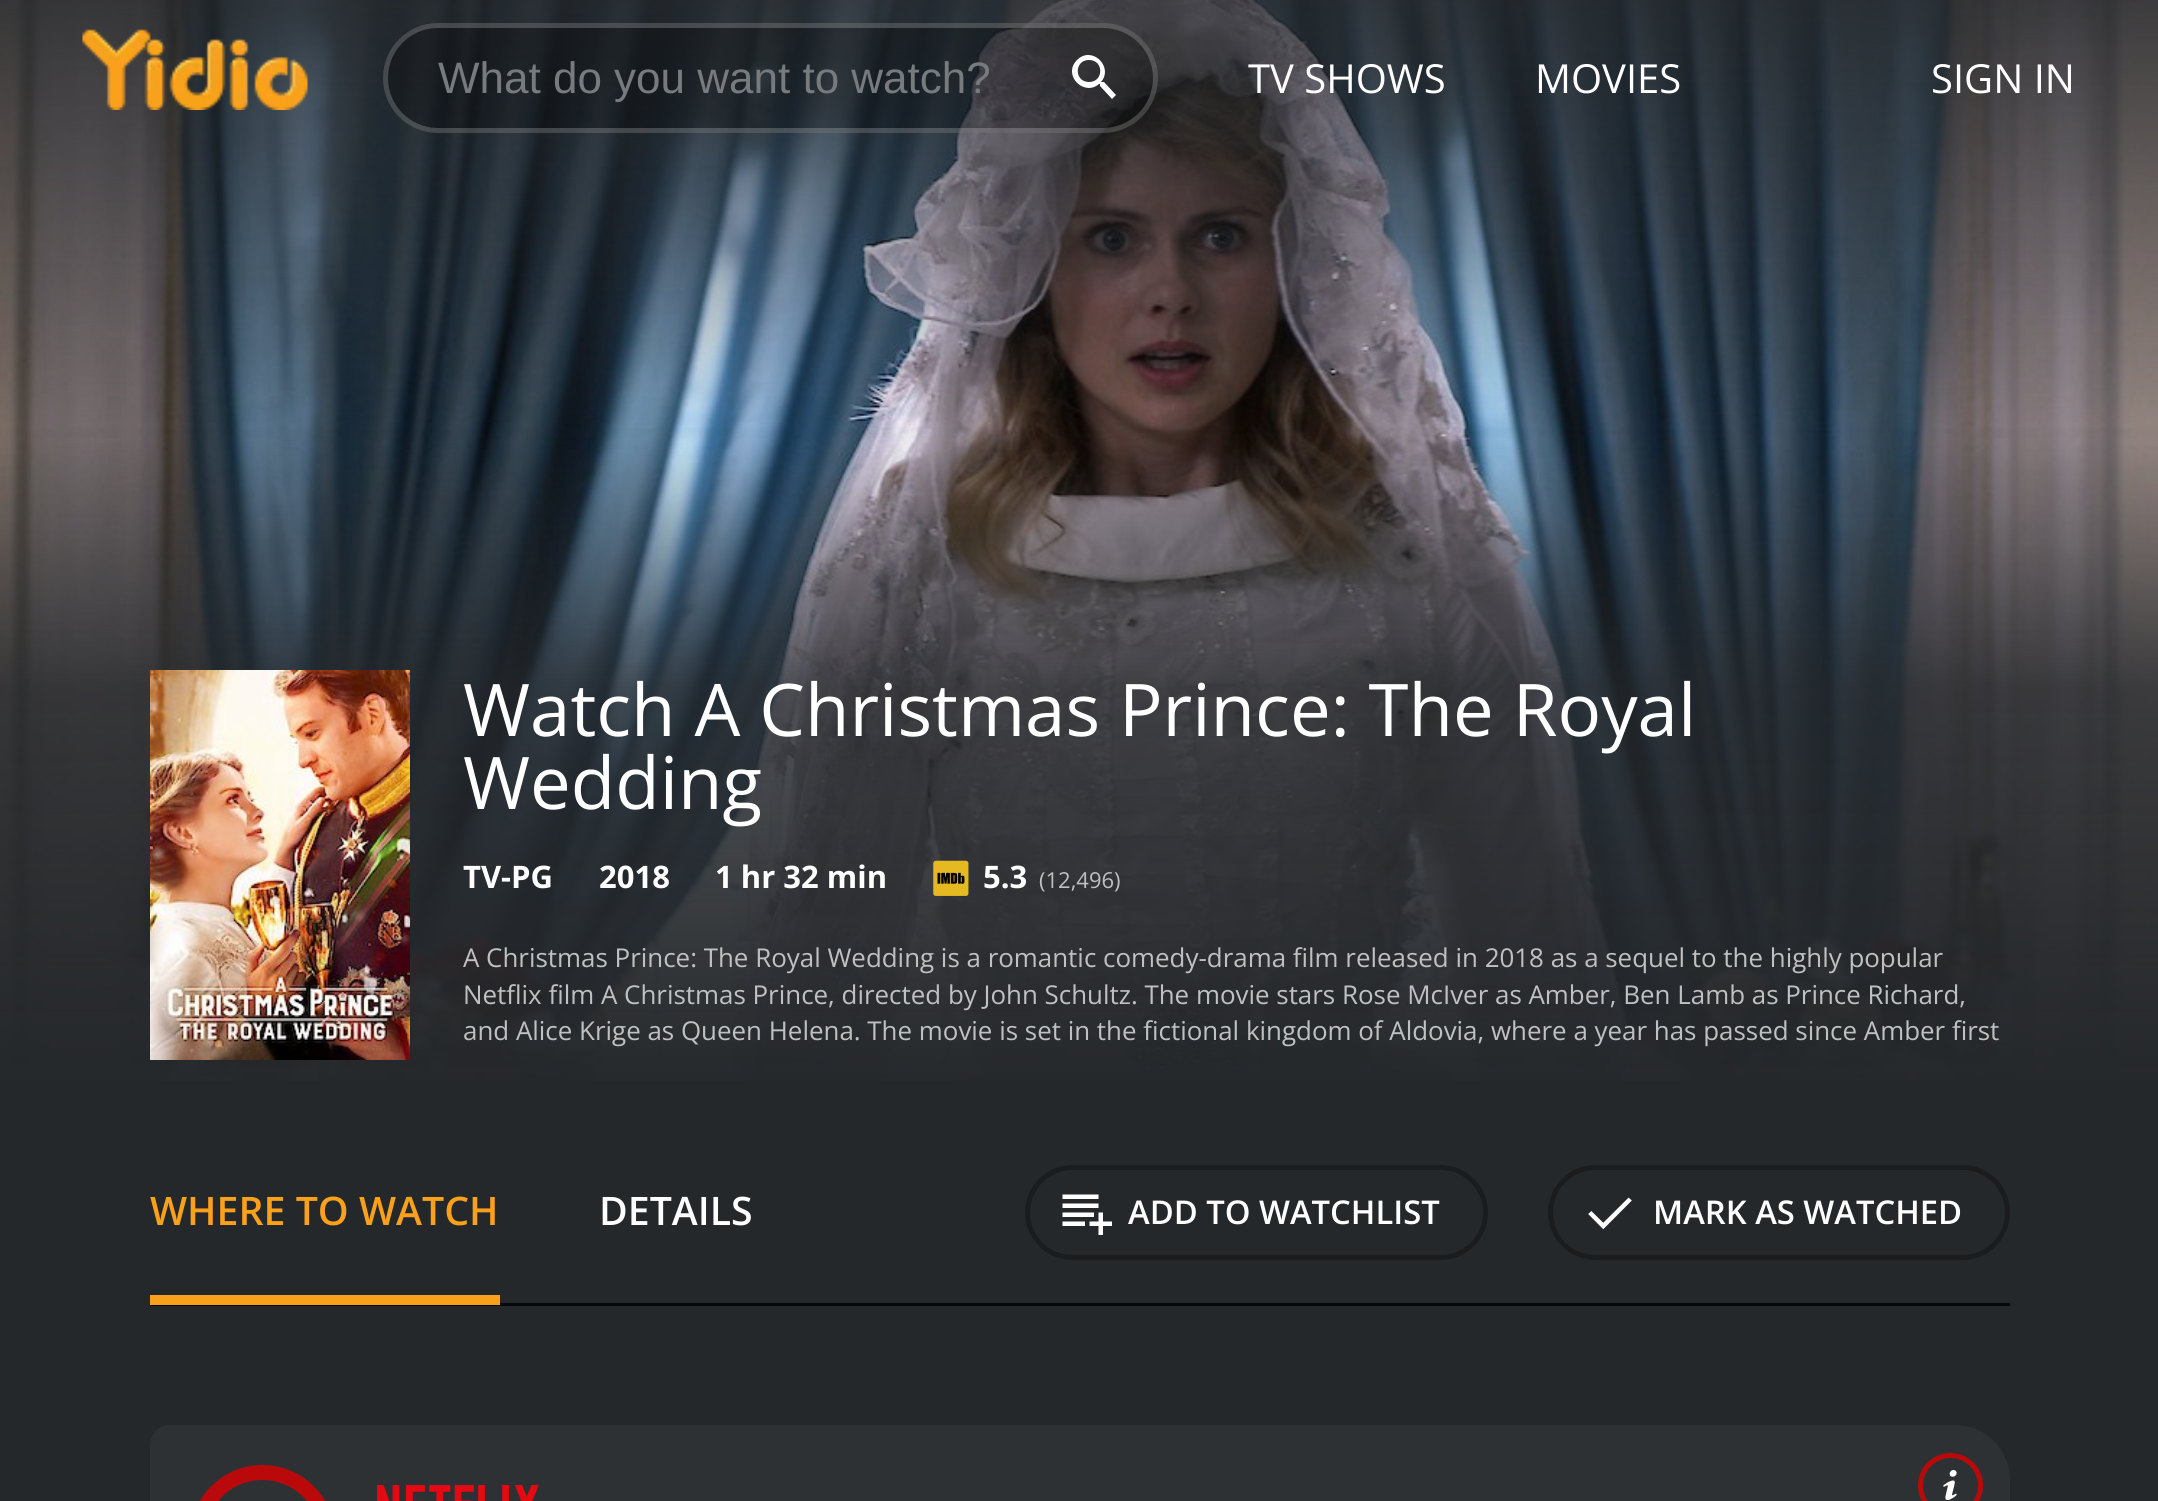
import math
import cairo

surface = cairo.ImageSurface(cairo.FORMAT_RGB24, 2158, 1501)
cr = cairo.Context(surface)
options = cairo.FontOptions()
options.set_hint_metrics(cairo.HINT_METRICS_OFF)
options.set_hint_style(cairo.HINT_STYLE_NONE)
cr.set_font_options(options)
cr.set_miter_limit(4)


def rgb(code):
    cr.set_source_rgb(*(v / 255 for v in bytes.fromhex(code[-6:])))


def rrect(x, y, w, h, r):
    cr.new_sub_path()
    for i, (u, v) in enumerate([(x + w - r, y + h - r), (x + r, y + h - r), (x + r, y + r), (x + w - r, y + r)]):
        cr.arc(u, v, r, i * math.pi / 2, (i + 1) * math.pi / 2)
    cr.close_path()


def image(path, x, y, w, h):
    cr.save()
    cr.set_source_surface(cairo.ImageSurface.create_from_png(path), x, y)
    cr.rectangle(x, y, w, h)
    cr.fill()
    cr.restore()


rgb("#25282b")
cr.paint()
image("img/2.png", 0, 0, 2158, 1081)
gradient = cairo.LinearGradient(1080, 420, 1080, 1093)
gradient.add_color_stop_rgba(0, 0.145, 0.157, 0.169, 0)
gradient.add_color_stop_rgba(0.4, 0.145, 0.157, 0.169, 0.8)
gradient.add_color_stop_rgba(1, 0.145, 0.157, 0.169, 1)
cr.set_source(gradient)
cr.rectangle(0, 427, 2158, 654)
cr.fill()
gradient = cairo.LinearGradient(1080, -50, 1080, 450)
gradient.add_color_stop_rgba(0, 0.145, 0.157, 0.169, 0.9)
gradient.add_color_stop_rgba(1, 0.145, 0.157, 0.169, 0)
cr.set_source(gradient)
cr.rectangle(0, 0, 2158, 438)
cr.fill()
image("img/1.png", 82, 29, 226, 81)
cr.set_source_rgba(0, 0, 0, 0.3)
rrect(383, 23, 775, 110, 55)
cr.fill()
rrect(385.5, 25.5, 770, 105, 52.5)
cr.set_source_rgba(1, 1, 1, 0.2)
cr.set_line_width(5)
cr.stroke()
rgb("#ffffff")
cr.new_path()
cr.move_to(1104, 82)
cr.line_to(1102, 82)
cr.line_to(1101, 82)
cr.curve_to(1114, 67, 1092, 45, 1077, 60)
cr.curve_to(1062, 75, 1084, 97, 1099, 84)
cr.line_to(1100, 84)
cr.line_to(1100, 86)
cr.line_to(1112, 99)
cr.line_to(1116, 95)
cr.close_path()
cr.move_to(1089, 82)
cr.curve_to(1074, 82, 1074, 60, 1089, 60)
cr.curve_to(1104, 60, 1104, 82, 1089, 82)
cr.close_path()
cr.fill()
image("img/3.png", 150, 670, 260, 390)
image("img/4.png", 933, 860, 36, 36)
rgb("#070809")
cr.rectangle(150, 1303, 1860, 3)
cr.fill()
rgb("#f9a11b")
cr.rectangle(150, 1295, 350, 10)
cr.fill()
rrect(1027.5, 1167.5, 458, 90, 45)
rgb("#1a1c1e")
cr.stroke()
image("img/5.png", 1062, 1194, 50, 41)
rrect(1550.5, 1167.5, 457, 90, 45)
cr.stroke()
image("img/6.png", 1588, 1197, 44, 33)
rgb("#2e3133")
cr.new_path()
cr.move_to(170, 1425)
cr.line_to(1955, 1425)
cr.curve_to(1985.5, 1425, 2010, 1449.5, 2010, 1480)
cr.line_to(2010, 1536)
cr.curve_to(2010, 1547, 2001, 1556, 1990, 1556)
cr.line_to(170, 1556)
cr.curve_to(159, 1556, 150, 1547, 150, 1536)
cr.line_to(150, 1445)
cr.curve_to(150, 1434, 159, 1425, 170, 1425)
cr.close_path()
cr.fill()
rrect(197.5, 1472.5, 130, 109, 65)
rgb("#b9090b")
cr.set_line_width(15)
cr.stroke()
image("img/7.png", 377, 1485, 162, 16)
cr.arc(1950.5, 1485.5, 30, 0, 2 * math.pi)
cr.set_line_width(5)
cr.stroke()
image("img/8.png", 1943, 1470, 14, 30)
cr.select_font_face("Liberation Sans")
cr.set_font_size(44)
rgb("#777b7e")
cr.move_to(438, 93)
cr.show_text("What do you want to watch?")
cr.select_font_face("Open Sans")
cr.set_font_size(40)
rgb("#ffffff")
for x, y, s in [
    (1248, 93, "TV SHOWS"),
    (1535, 93, "MOVIES"),
    (1931, 93, "SIGN IN"),
]:
    cr.move_to(x, y)
    cr.show_text(s)
cr.set_font_size(72.6)
cr.move_to(463, 736)
cr.show_text("Watch A Christmas Prince: The Royal")
cr.move_to(463, 809)
cr.show_text("Wedding")
cr.select_font_face("Open Sans", cairo.FONT_SLANT_NORMAL, cairo.FONT_WEIGHT_BOLD)
cr.set_font_size(31)
for x, y, s in [
    (463, 888, "TV-PG"),
    (599, 888, "2018"),
    (715, 888, "1 hr 32 min"),
    (983, 888, "5.3"),
]:
    cr.move_to(x, y)
    cr.show_text(s)
cr.select_font_face("Open Sans")
cr.set_font_size(22)
rgb("#bfc0c1")
cr.move_to(1039, 888)
cr.show_text("(12,496)")
cr.set_font_size(25.92)
for x, y, s in [
    (463, 967, "A Christmas Prince: The Royal Wedding is a romantic comedy-drama film released in 2018 as a sequel to the highly popular"),
    (463, 1004, "Netflix film A Christmas Prince, directed by John Schultz. The movie stars Rose McIver as Amber, Ben Lamb as Prince Richard,"),
    (463, 1040, "and Alice Krige as Queen Helena. The movie is set in the fictional kingdom of Aldovia, where a year has passed since Amber first"),
]:
    cr.move_to(x, y)
    cr.show_text(s)
cr.select_font_face("Open Sans SemiBold")
cr.set_font_size(39.25)
rgb("#f9a11b")
cr.move_to(150, 1225)
cr.show_text("WHERE TO WATCH")
rgb("#ffffff")
cr.move_to(599, 1225)
cr.show_text("DETAILS")
cr.set_font_size(32.75)
cr.move_to(1128, 1224)
cr.show_text("ADD TO WATCHLIST")
cr.move_to(1653, 1224)
cr.show_text("MARK AS WATCHED")
surface.write_to_png("page.png")
